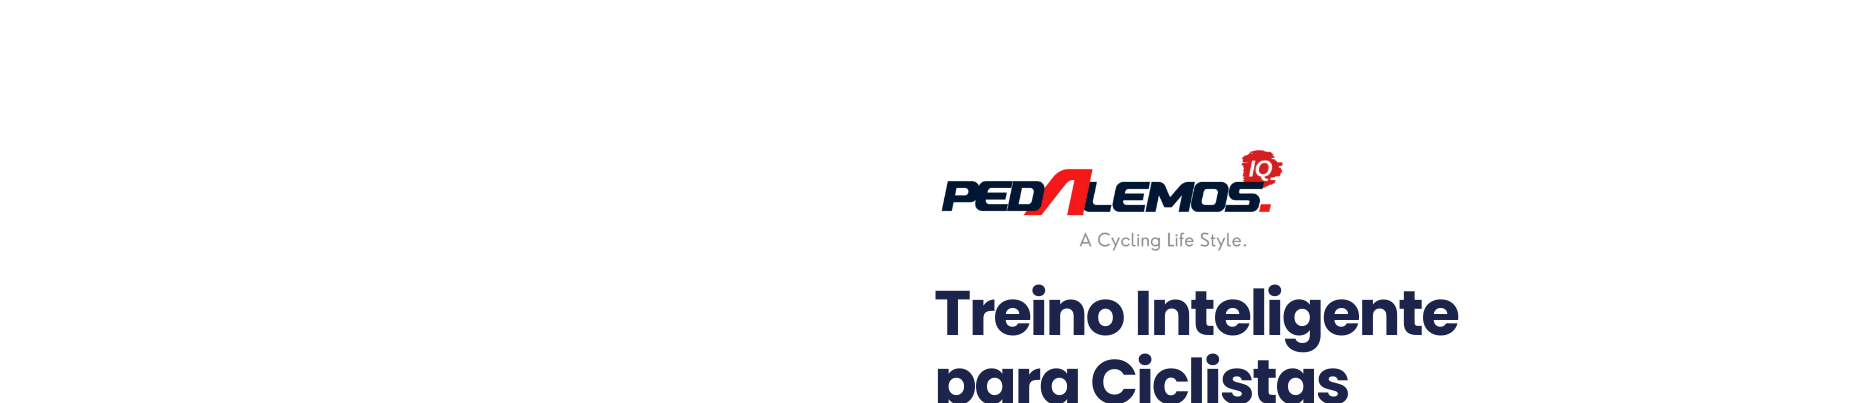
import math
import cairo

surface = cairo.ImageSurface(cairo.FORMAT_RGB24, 1868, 403)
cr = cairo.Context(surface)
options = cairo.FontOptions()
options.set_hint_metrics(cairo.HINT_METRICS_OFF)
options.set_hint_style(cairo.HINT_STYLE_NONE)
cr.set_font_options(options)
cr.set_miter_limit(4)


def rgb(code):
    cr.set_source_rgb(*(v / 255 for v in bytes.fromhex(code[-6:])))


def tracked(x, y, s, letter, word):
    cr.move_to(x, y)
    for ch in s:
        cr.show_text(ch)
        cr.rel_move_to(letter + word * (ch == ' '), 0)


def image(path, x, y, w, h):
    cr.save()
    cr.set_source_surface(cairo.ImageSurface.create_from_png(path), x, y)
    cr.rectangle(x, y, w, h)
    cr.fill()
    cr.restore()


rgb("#ffffff")
cr.paint()
image("img/1.png", 941, 150, 342, 101)
cr.select_font_face("Poppins", cairo.FONT_SLANT_NORMAL, cairo.FONT_WEIGHT_BOLD)
cr.set_font_size(63)
rgb("#1c244b")
tracked(934, 335, "Treino Inteligente", -2.5, 0)
tracked(934, 404, "para Ciclistas", -2.5, 0)
surface.write_to_png("page.png")
